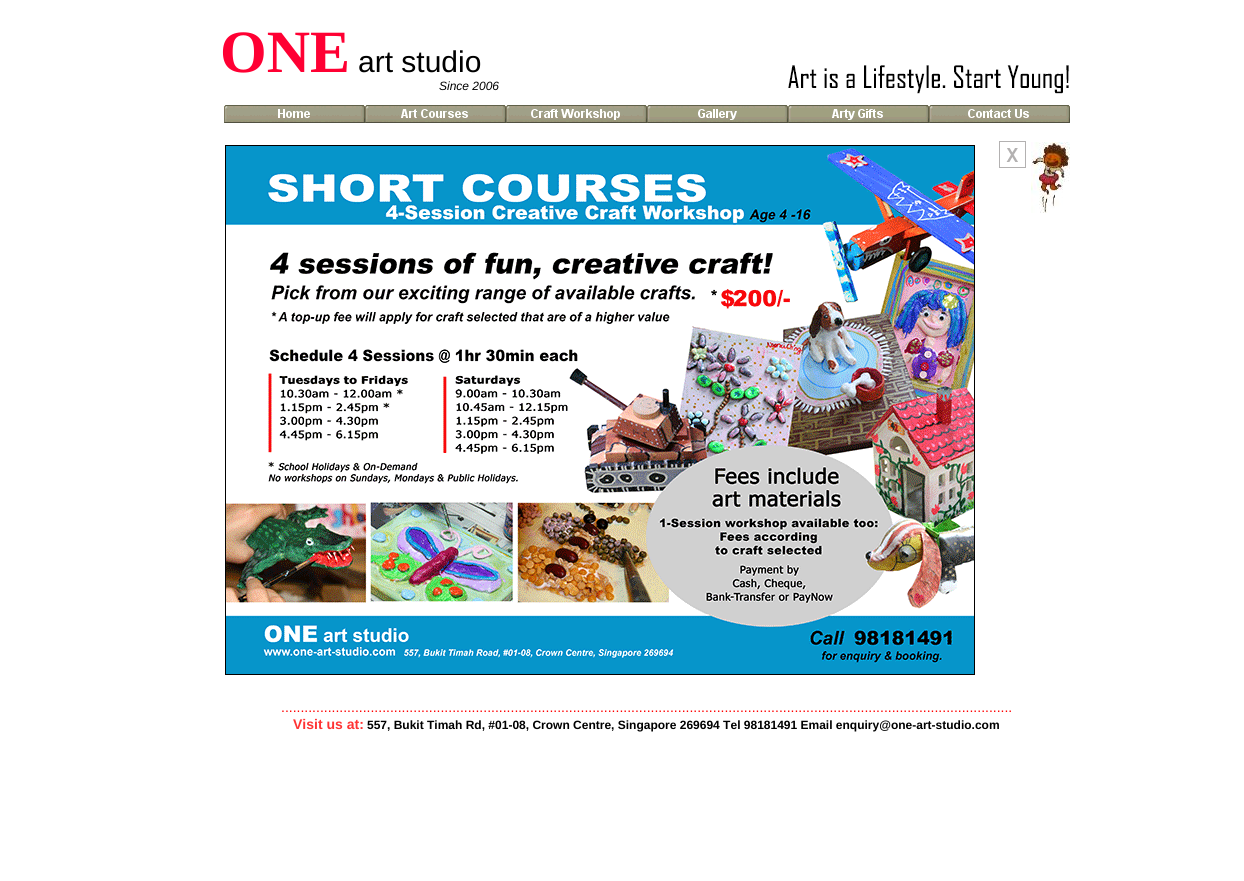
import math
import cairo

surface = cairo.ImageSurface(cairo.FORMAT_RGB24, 1244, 881)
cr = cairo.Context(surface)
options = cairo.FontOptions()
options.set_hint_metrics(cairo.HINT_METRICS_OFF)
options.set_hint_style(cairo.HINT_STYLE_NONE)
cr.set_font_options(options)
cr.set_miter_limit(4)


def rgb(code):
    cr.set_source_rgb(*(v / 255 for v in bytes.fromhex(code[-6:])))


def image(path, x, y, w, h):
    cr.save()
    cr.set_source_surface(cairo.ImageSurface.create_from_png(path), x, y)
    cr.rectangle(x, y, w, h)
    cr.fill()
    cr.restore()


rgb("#ffffff")
cr.paint()
image("img/1.png", 788, 65, 281, 29)
image("img/2.png", 224, 105, 141, 18)
image("img/3.png", 365, 105, 141, 18)
image("img/4.png", 506, 105, 141, 18)
image("img/5.png", 647, 105, 141, 18)
image("img/6.png", 788, 105, 141, 18)
image("img/7.png", 929, 105, 141, 18)
image("img/8.png", 225, 145, 750, 530)
image("img/9.png", 999, 141, 27, 27)
image("img/10.png", 1031, 142, 39, 71)
cr.select_font_face("Liberation Serif", cairo.FONT_SLANT_NORMAL, cairo.FONT_WEIGHT_BOLD)
cr.set_font_size(60)
rgb("#ff0033")
cr.move_to(220, 72)
cr.show_text("ONE")
cr.select_font_face("Liberation Sans")
cr.set_font_size(30)
rgb("#000000")
cr.move_to(358, 72)
cr.show_text("art studio")
cr.select_font_face("Liberation Sans", cairo.FONT_SLANT_ITALIC)
cr.set_font_size(12)
cr.move_to(439, 90)
cr.show_text("Since 2006")
cr.select_font_face("Liberation Sans")
cr.set_font_size(14)
rgb("#ff0000")
cr.move_to(281, 712)
cr.show_text("............................................................................................................................................................................................")
cr.select_font_face("Liberation Sans", cairo.FONT_SLANT_NORMAL, cairo.FONT_WEIGHT_BOLD)
rgb("#ff3333")
cr.move_to(293, 729)
cr.show_text("Visit us at:")
cr.set_font_size(12)
rgb("#000000")
cr.move_to(367, 729)
cr.show_text("557, Bukit Timah Rd, #01-08, Crown Centre, Singapore 269694 Tel 98181491 Email enquiry@one-art-studio.com")
surface.write_to_png("page.png")
